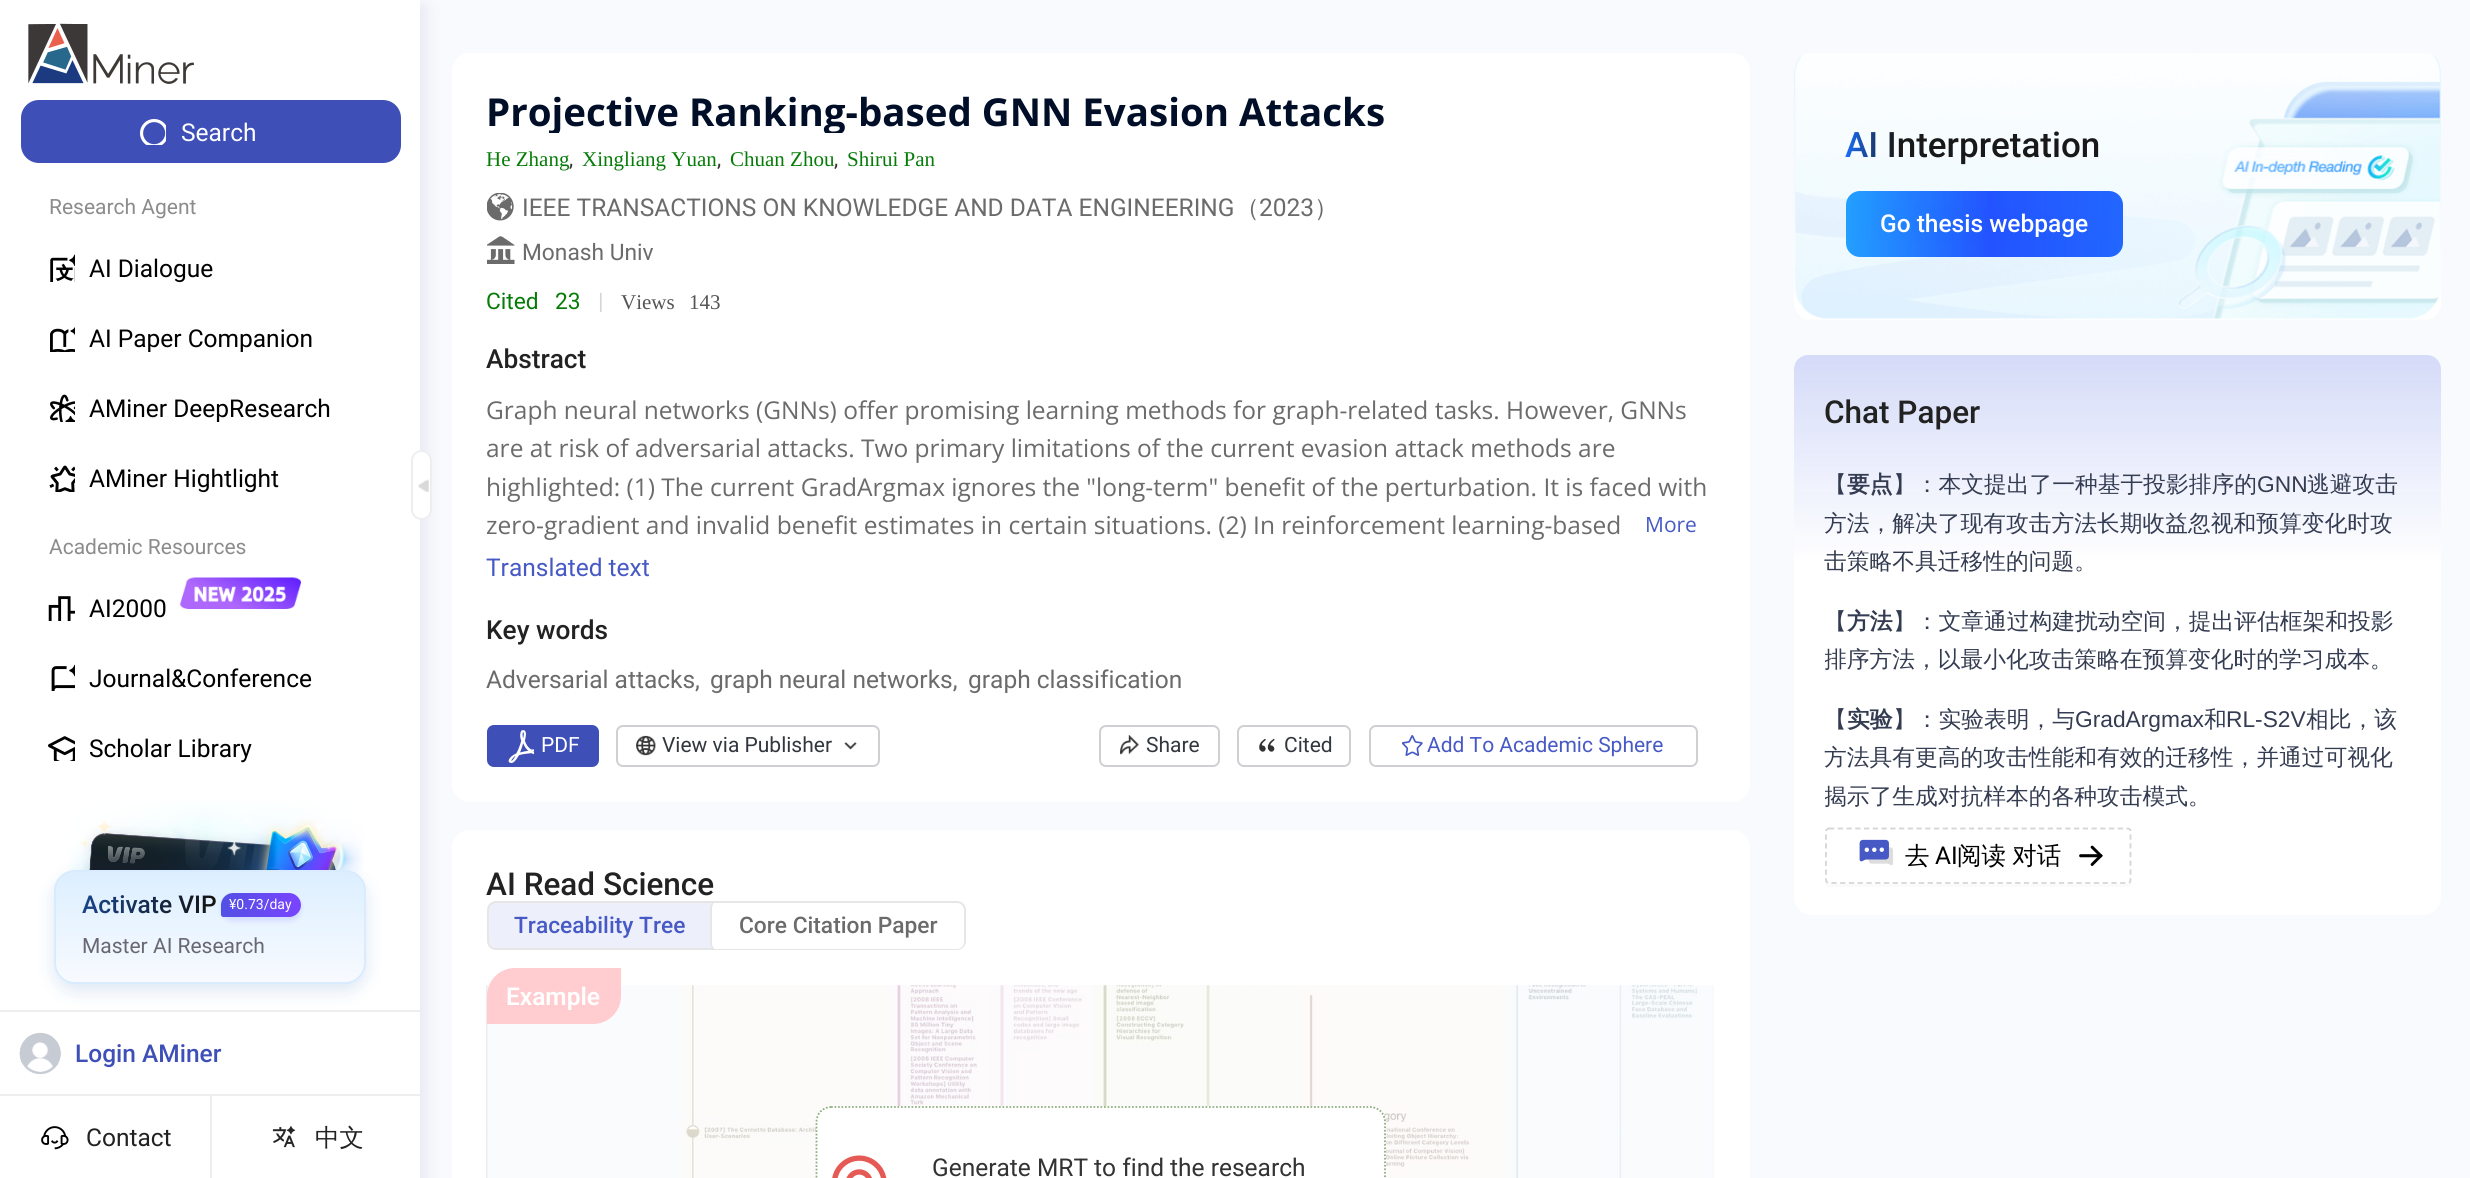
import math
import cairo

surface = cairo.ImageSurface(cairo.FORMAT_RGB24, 2470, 1178)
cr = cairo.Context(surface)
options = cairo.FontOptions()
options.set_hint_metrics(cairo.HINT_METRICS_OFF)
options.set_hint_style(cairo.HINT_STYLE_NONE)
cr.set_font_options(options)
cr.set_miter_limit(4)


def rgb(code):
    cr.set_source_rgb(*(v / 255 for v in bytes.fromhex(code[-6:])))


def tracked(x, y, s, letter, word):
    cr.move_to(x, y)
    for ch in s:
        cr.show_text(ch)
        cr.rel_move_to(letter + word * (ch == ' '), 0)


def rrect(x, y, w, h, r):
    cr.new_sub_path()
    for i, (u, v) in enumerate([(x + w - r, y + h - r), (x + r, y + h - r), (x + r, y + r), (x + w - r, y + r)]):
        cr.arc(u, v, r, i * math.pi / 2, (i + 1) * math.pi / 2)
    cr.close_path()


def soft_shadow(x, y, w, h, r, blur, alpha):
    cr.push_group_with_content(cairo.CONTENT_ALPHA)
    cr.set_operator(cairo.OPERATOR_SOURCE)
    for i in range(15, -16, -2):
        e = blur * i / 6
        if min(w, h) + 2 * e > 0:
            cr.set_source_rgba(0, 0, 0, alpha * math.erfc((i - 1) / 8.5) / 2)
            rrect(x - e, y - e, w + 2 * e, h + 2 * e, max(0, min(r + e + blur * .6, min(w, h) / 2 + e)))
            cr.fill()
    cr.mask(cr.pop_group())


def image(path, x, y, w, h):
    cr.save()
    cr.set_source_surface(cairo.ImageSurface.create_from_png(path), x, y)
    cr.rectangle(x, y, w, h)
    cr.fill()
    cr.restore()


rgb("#ffffff")
cr.paint()
rgb("#f9fafd")
cr.rectangle(420, 0, 2050, 1178)
cr.fill()
cr.save()
cr.rectangle(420, 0, 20, 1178)
cr.clip()
rgb("#cccfe7")
soft_shadow(4, 7, 420, 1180, 0, 9, 0.5)
cr.restore()
image("img/1.png", 28, 23, 166, 61)
rgb("#3e4fb8")
rrect(21, 100, 380, 63, 18)
cr.fill()
image("img/2.png", 140, 119, 26, 26)
image("img/3.png", 50, 254, 25, 28)
image("img/4.png", 50, 327, 25, 25)
image("img/5.png", 50, 394, 25, 28)
image("img/6.png", 49, 465, 26, 27)
image("img/7.png", 48, 596, 27, 25)
image("img/8.png", 180, 577, 121, 32)
image("img/9.png", 51, 664, 24, 27)
image("img/10.png", 48, 736, 27, 25)
rgb("#ffffff")
rrect(412, 451, 19, 68, 9.5)
cr.fill_preserve()
rgb("#eeeeee")
cr.stroke()
image("img/11.png", 418, 479, 11, 13)
image("img/12.png", 68, 801, 296, 75)
rgb("#0b4db2")
soft_shadow(54, 877, 312, 114, 21, 9, 0.14)
cr.save()
rrect(54, 870, 312, 114, 21)
cr.clip()
gradient = cairo.LinearGradient(210, 872, 210, 982)
gradient.add_color_stop_rgba(0, 0.863, 0.937, 1, 1)
gradient.add_color_stop_rgba(1, 0.973, 0.98, 1, 1)
cr.set_source(gradient)
cr.rectangle(54, 872, 312, 110)
cr.fill()
cr.restore()
rrect(55, 871, 310, 112, 20)
rgb("#d8ebff")
cr.stroke()
rgb("#4e48fe")
soft_shadow(221, 896, 80, 25, 12.5, 2.5, 0.14)
gradient = cairo.LinearGradient(221, 905, 301, 905)
gradient.add_color_stop_rgba(0, 0.322, 0.314, 0.894, 1)
gradient.add_color_stop_rgba(1, 0.478, 0.267, 1, 1)
cr.set_source(gradient)
cr.new_path()
cr.move_to(233, 893)
cr.line_to(289, 893)
cr.curve_to(295.5, 893, 301, 898.5, 301, 905)
cr.curve_to(301, 911.5, 295.5, 917, 289, 917)
cr.line_to(223.5, 917)
cr.curve_to(222, 917, 221, 916, 221, 914.5)
cr.line_to(221, 905)
cr.curve_to(221, 898.5, 226.5, 893, 233, 893)
cr.close_path()
cr.fill()
rgb("#eeeeee")
cr.rectangle(0, 1010, 420, 2)
cr.fill()
cr.rectangle(0, 1094, 420, 2)
cr.fill()
image("img/13.png", 19, 1032, 42, 43)
cr.rectangle(210, 1096, 2, 82)
cr.fill()
image("img/14.png", 41, 1126, 28, 24)
image("img/15.png", 272, 1126, 24, 22)
rgb("#ffffff")
rrect(452, 53, 1298, 749, 18)
cr.fill()
image("img/16.png", 487, 193, 27, 28)
image("img/17.png", 487, 236, 28, 28)
rgb("#3e4fb8")
rrect(487, 725, 112, 42, 7)
cr.fill()
image("img/18.png", 508, 730, 26, 33)
rrect(617, 726, 262, 40, 6)
rgb("#ced0d3")
cr.stroke()
image("img/19.png", 636, 735, 20, 21)
image("img/20.png", 844, 742, 13, 8)
rrect(1100, 726, 119, 40, 6)
cr.stroke()
image("img/21.png", 1120, 735, 20, 20)
rrect(1238, 726, 112, 40, 6)
cr.stroke()
image("img/22.png", 1259, 738, 16, 14)
rrect(1370, 726, 327, 40, 6)
cr.stroke()
image("img/23.png", 1402, 735, 21, 21)
rgb("#ffffff")
cr.new_path()
cr.move_to(470, 830)
cr.line_to(1732, 830)
cr.curve_to(1742, 830, 1750, 838, 1750, 848)
cr.line_to(1750, 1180)
cr.line_to(452, 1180)
cr.line_to(452, 848)
cr.curve_to(452, 838, 460, 830, 470, 830)
cr.close_path()
cr.fill()
rgb("#edeffb")
rrect(488, 902, 477, 47, 8)
cr.fill_preserve()
rgb("#e6e6e6")
cr.stroke()
cr.save()
rrect(488, 903, 476, 46, 7)
cr.clip()
rgb("#ffffff")
rrect(711, 900, 253, 52, 9)
cr.fill()
cr.restore()
cr.new_path()
cr.move_to(712, 949)
cr.curve_to(711, 947, 710, 945, 710, 943)
cr.line_to(710, 908)
cr.curve_to(710, 906, 711, 904, 712, 903)
cr.line_to(714, 903)
cr.curve_to(713, 904, 712, 906, 712, 908)
cr.line_to(712, 943)
cr.curve_to(712, 946, 713, 948, 715, 949)
cr.close_path()
cr.fill()
image("img/24.png", 486, 985, 1229, 193)
rgb("#ffccd0")
cr.new_path()
cr.move_to(515, 968)
cr.line_to(621, 968)
cr.line_to(621, 996)
cr.curve_to(621, 1011.5, 608.5, 1024, 593, 1024)
cr.line_to(487, 1024)
cr.line_to(487, 996)
cr.curve_to(487, 980.5, 499.5, 968, 515, 968)
cr.close_path()
cr.fill()
rgb("#ffffff")
cr.new_path()
cr.move_to(832, 1106)
cr.line_to(1370, 1106)
cr.curve_to(1379, 1106, 1386, 1113, 1386, 1122)
cr.line_to(1386, 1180)
cr.line_to(816, 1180)
cr.line_to(816, 1122)
cr.curve_to(816, 1113, 823, 1106, 832, 1106)
cr.close_path()
cr.fill()
cr.new_path()
cr.move_to(831, 1107)
cr.line_to(1370, 1107)
cr.curve_to(1378.5, 1107, 1385, 1113.5, 1385, 1122)
cr.line_to(1385, 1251)
cr.curve_to(1385, 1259.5, 1378.5, 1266, 1370, 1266)
cr.line_to(831, 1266)
cr.curve_to(823, 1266, 816.5, 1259.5, 816.5, 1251)
cr.line_to(816.5, 1122)
cr.curve_to(816.5, 1113.5, 823, 1107, 831, 1107)
cr.close_path()
rgb("#8fae7c")
cr.set_line_width(1.8)
cr.set_dash([1.75, 1.75])
cr.stroke()
image("img/25.png", 832, 1155, 55, 23)
image("img/26.png", 1794, 53, 647, 267)
rgb("#ffffff")
rrect(1794, 355, 647, 560, 18)
cr.fill()
gradient = cairo.LinearGradient(2118, 355, 2118, 565)
gradient.add_color_stop_rgba(0, 0.835, 0.859, 0.973, 1)
gradient.add_color_stop_rgba(1, 0.835, 0.859, 0.973, 0)
cr.set_source(gradient)
cr.new_path()
cr.move_to(1808, 355)
cr.line_to(2427, 355)
cr.curve_to(2434.5, 355, 2441, 361.5, 2441, 369)
cr.line_to(2441, 565)
cr.line_to(1794, 565)
cr.line_to(1794, 369)
cr.curve_to(1794, 361.5, 1800.5, 355, 1808, 355)
cr.close_path()
cr.fill()
rgb("#fbfbfb")
cr.new_path()
cr.move_to(1825, 834)
cr.line_to(1825, 883)
cr.curve_to(1825, 885, 1827, 887, 1829, 887)
cr.line_to(2128, 887)
cr.curve_to(2130, 887, 2132, 885, 2132, 883)
cr.line_to(2132, 835)
cr.line_to(2132, 833)
cr.line_to(2132, 880)
cr.curve_to(2132, 882, 2130, 884, 2128, 884)
cr.line_to(1829, 884)
cr.curve_to(1827, 884, 1825, 882, 1825, 880)
cr.close_path()
cr.fill()
cr.new_path()
cr.move_to(1829, 828.5)
cr.line_to(2128, 828.5)
cr.curve_to(2129.5, 828.5, 2130.5, 830, 2130.5, 831)
cr.line_to(2130.5, 880)
cr.curve_to(2130.5, 881.5, 2129.5, 883, 2128, 883)
cr.line_to(1829, 883)
cr.curve_to(1827.5, 883, 1826, 881.5, 1826, 880)
cr.line_to(1826, 831)
cr.curve_to(1826, 830, 1827.5, 828.5, 1829, 828.5)
cr.close_path()
rgb("#d5d5d5")
cr.set_dash([5.25, 3.5])
cr.stroke()
image("img/27.png", 1859, 839, 34, 27)
image("img/28.png", 2079, 845, 24, 21)
cr.select_font_face("Roboto")
cr.set_font_size(24.5)
rgb("#ffffff")
cr.move_to(181, 141)
cr.show_text("Search")
cr.set_font_size(21)
rgb("#8c8c8c")
cr.move_to(49, 214)
cr.show_text("Research Agent")
cr.set_font_size(24.5)
rgb("#000000")
for x, y, s in [
    (89, 277, "AI Dialogue"),
    (89, 347, "AI Paper Companion"),
    (89, 417, "AMiner DeepResearch"),
    (89, 487, "AMiner Hightlight"),
]:
    cr.move_to(x, y)
    cr.show_text(s)
cr.set_font_size(21)
rgb("#8c8c8c")
cr.move_to(49, 554)
cr.show_text("Academic Resources")
cr.set_font_size(24.5)
rgb("#000000")
for x, y, s in [
    (89, 617, "AI2000"),
    (89, 687, "Journal&Conference"),
    (89, 757, "Scholar Library"),
]:
    cr.move_to(x, y)
    cr.show_text(s)
cr.select_font_face("Roboto Medium")
gradient = cairo.LinearGradient(82, 903, 217, 907)
gradient.add_color_stop_rgba(0.02, 0.094, 0.263, 0.533, 1)
gradient.add_color_stop_rgba(0.95, 0.078, 0.078, 0.078, 1)
cr.set_source(gradient)
cr.move_to(82, 913)
cr.show_text("Activate VIP")
cr.select_font_face("Roboto")
cr.set_font_size(14)
rgb("#ffffff")
cr.move_to(229, 909)
cr.show_text("¥0.73/day")
cr.set_font_size(21)
rgb("#686772")
cr.move_to(82, 953)
cr.show_text("Master AI Research")
cr.select_font_face("Roboto Medium")
cr.set_font_size(24.5)
rgb("#3e4fb8")
cr.move_to(75, 1062)
cr.show_text("Login AMiner")
cr.select_font_face("Roboto")
rgb("#222222")
cr.move_to(86, 1146)
cr.show_text("Contact")
cr.select_font_face("WenQuanYi Zen Hei Medium")
cr.move_to(315, 1146)
cr.show_text("中文")
cr.save()
cr.rectangle(487, 88, 897, 45)
cr.clip()
cr.select_font_face("Open Sans", cairo.FONT_SLANT_NORMAL, cairo.FONT_WEIGHT_BOLD)
cr.set_font_size(38.5)
rgb("#000e28")
cr.move_to(486, 126)
cr.show_text("Projective Ranking-based GNN Evasion Attacks")
cr.restore()
cr.select_font_face("Liberation Serif")
cr.set_font_size(21)
rgb("#067c08")
cr.move_to(486, 166)
cr.show_text("He Zhang")
cr.select_font_face("Roboto")
rgb("#333333")
cr.move_to(569, 166)
cr.show_text(",")
cr.select_font_face("Liberation Serif")
rgb("#067c08")
cr.move_to(582, 166)
cr.show_text("Xingliang Yuan")
cr.select_font_face("Roboto")
rgb("#333333")
cr.move_to(717, 166)
cr.show_text(",")
cr.select_font_face("Liberation Serif")
rgb("#067c08")
cr.move_to(730, 166)
cr.show_text("Chuan Zhou")
cr.select_font_face("Roboto")
rgb("#333333")
cr.move_to(834, 166)
cr.show_text(",")
cr.select_font_face("Liberation Serif")
rgb("#067c08")
cr.move_to(847, 166)
cr.show_text("Shirui Pan")
cr.select_font_face("Roboto")
cr.set_font_size(24.5)
rgb("#6b6b6b")
cr.move_to(522, 216)
cr.show_text("IEEE TRANSACTIONS ON KNOWLEDGE AND DATA ENGINEERING")
cr.select_font_face("WenQuanYi Zen Hei Medium")
cr.move_to(1235, 216)
cr.show_text("（")
cr.select_font_face("Roboto")
cr.move_to(1259, 216)
cr.show_text("2023")
cr.select_font_face("WenQuanYi Zen Hei Medium")
cr.move_to(1314, 216)
cr.show_text("）")
cr.select_font_face("Roboto")
cr.set_font_size(22.75)
cr.move_to(522, 260)
cr.show_text("Monash Univ")
rgb("#067c08")
cr.move_to(486, 309)
cr.show_text("Cited")
cr.move_to(555, 309)
cr.show_text("23")
rgb("#d5d5d5")
cr.move_to(598, 309)
cr.show_text("|")
cr.select_font_face("Liberation Serif")
cr.set_font_size(21)
rgb("#545454")
cr.move_to(621, 309)
cr.show_text("Views")
cr.move_to(689, 309)
cr.show_text("143")
cr.select_font_face("Roboto Medium")
cr.set_font_size(26.25)
rgb("#222222")
cr.move_to(486, 368)
cr.show_text("Abstract")
cr.select_font_face("Open Sans")
cr.set_font_size(24.5)
rgb("#6b6b6b")
cr.move_to(486, 419)
cr.show_text("Graph neural networks (GNNs) offer promising learning methods for graph-related tasks. However, GNNs")
cr.save()
cr.rectangle(487, 390, 1228, 154)
cr.clip()
cr.move_to(486, 457)
cr.show_text("are at risk of adversarial attacks. Two primary limitations of the current evasion attack methods are")
cr.restore()
cr.move_to(486, 496)
cr.show_text("highlighted: (1) The current GradArgmax ignores the \"long-term\" benefit of the perturbation. It is faced with")
cr.move_to(486, 534)
cr.show_text("zero-gradient and invalid benefit estimates in certain situations. (2) In reinforcement learning-based")
cr.set_font_size(21)
rgb("#4759c5")
cr.move_to(1645, 532)
cr.show_text("More")
cr.select_font_face("Roboto")
cr.set_font_size(24.5)
cr.move_to(486, 576)
cr.show_text("Translated text")
cr.select_font_face("Roboto Medium")
cr.set_font_size(26.25)
rgb("#222222")
cr.move_to(486, 639)
cr.show_text("Key words")
cr.select_font_face("Roboto")
cr.set_font_size(24.5)
rgb("#6b6b6b")
for x, y, s in [
    (486, 688, "Adversarial attacks,"),
    (710, 688, "graph neural networks,"),
    (968, 688, "graph classification"),
]:
    cr.move_to(x, y)
    cr.show_text(s)
cr.set_font_size(21)
rgb("#ffffff")
cr.move_to(541, 752)
cr.show_text("PDF")
rgb("#31373d")
for x, y, s in [
    (662, 752, "View via Publisher"),
    (1146, 752, "Share"),
    (1284, 752, "Cited"),
]:
    cr.move_to(x, y)
    cr.show_text(s)
rgb("#4759c5")
cr.move_to(1427, 752)
cr.show_text("Add To Academic Sphere")
cr.select_font_face("Roboto Medium")
cr.set_font_size(31.5)
rgb("#222222")
cr.move_to(486, 895)
cr.show_text("AI Read Science")
cr.set_font_size(22.75)
rgb("#4759c5")
cr.move_to(514, 933)
cr.show_text("Traceability Tree")
rgb("#6b6b6b")
cr.move_to(739, 933)
cr.show_text("Core Citation Paper")
cr.select_font_face("Roboto SemiBold")
cr.set_font_size(24.5)
rgb("#ffffff")
cr.move_to(506, 1005)
cr.show_text("Example")
cr.select_font_face("Roboto")
rgb("#333333")
cr.move_to(932, 1176)
cr.show_text("Generate MRT to find the research")
cr.select_font_face("Roboto Medium")
cr.set_font_size(35)
gradient = cairo.LinearGradient(1845, 144, 2124, 144)
gradient.add_color_stop_rgba(0, 0.098, 0.431, 1, 1)
gradient.add_color_stop_rgba(0.18, 0.098, 0.098, 0.098, 1)
cr.set_source(gradient)
cr.move_to(1845, 157)
cr.show_text("AI Interpretation")
cr.set_font_size(24.5)
rgb("#ffffff")
cr.move_to(1880, 232)
cr.show_text("Go thesis webpage")
cr.set_font_size(31.5)
rgb("#222222")
cr.move_to(1824, 423)
cr.show_text("Chat Paper")
cr.select_font_face("WenQuanYi Zen Hei Medium")
cr.set_font_size(22.75)
rgb("#343c52")
cr.move_to(1824, 492)
cr.show_text("【")
cr.select_font_face("WenQuanYi Zen Hei", cairo.FONT_SLANT_NORMAL, cairo.FONT_WEIGHT_BOLD)
cr.move_to(1847, 492)
cr.show_text("要点")
cr.select_font_face("WenQuanYi Zen Hei Medium")
cr.move_to(1893, 492)
cr.show_text("】：本文提出了一种基于投影排序的")
cr.select_font_face("Liberation Sans")
cr.move_to(2257, 492)
cr.show_text("GNN")
cr.select_font_face("WenQuanYi Zen Hei Medium")
for x, y, s in [
    (2307, 492, "逃避攻击"),
    (1824, 531, "方法，解决了现有攻击方法长期收益忽视和预算变化时攻"),
    (1824, 569, "击策略不具迁移性的问题。"),
    (1824, 629, "【"),
]:
    cr.move_to(x, y)
    cr.show_text(s)
cr.select_font_face("WenQuanYi Zen Hei", cairo.FONT_SLANT_NORMAL, cairo.FONT_WEIGHT_BOLD)
cr.move_to(1847, 629)
cr.show_text("方法")
cr.select_font_face("WenQuanYi Zen Hei Medium")
cr.move_to(1893, 629)
cr.show_text("】：文章通过构建扰动空间，提出评估框架和投影")
cr.save()
cr.rectangle(1825, 466, 585, 362)
cr.clip()
cr.move_to(1824, 667)
cr.show_text("排序方法，以最小化攻击策略在预算变化时的学习成本。")
cr.restore()
cr.move_to(1824, 727)
cr.show_text("【")
cr.select_font_face("WenQuanYi Zen Hei", cairo.FONT_SLANT_NORMAL, cairo.FONT_WEIGHT_BOLD)
cr.move_to(1847, 727)
cr.show_text("实验")
cr.select_font_face("WenQuanYi Zen Hei Medium")
cr.move_to(1893, 727)
cr.show_text("】：实验表明，与")
cr.select_font_face("Liberation Sans")
cr.move_to(2075, 727)
cr.show_text("GradArgmax")
cr.select_font_face("WenQuanYi Zen Hei Medium")
cr.move_to(2204, 727)
cr.show_text("和")
cr.select_font_face("Liberation Sans")
cr.move_to(2226, 727)
cr.show_text("RL-S2V")
cr.select_font_face("WenQuanYi Zen Hei Medium")
cr.move_to(2306, 727)
cr.show_text("相比，该")
cr.move_to(1824, 765)
cr.show_text("方法具有更高的攻击性能和有效的迁移性，并通过可视化")
cr.save()
cr.rectangle(1825, 466, 585, 362)
cr.clip()
cr.move_to(1824, 804)
cr.show_text("揭示了生成对抗样本的各种攻击模式。")
cr.restore()
cr.set_font_size(24.5)
rgb("#000000")
cr.move_to(1905, 864)
cr.show_text("去")
cr.select_font_face("Roboto")
cr.move_to(1935, 864)
cr.show_text("AI")
cr.select_font_face("WenQuanYi Zen Hei Medium")
tracked(1957, 864, "阅读 对话", 0, -1)
surface.write_to_png("page.png")
